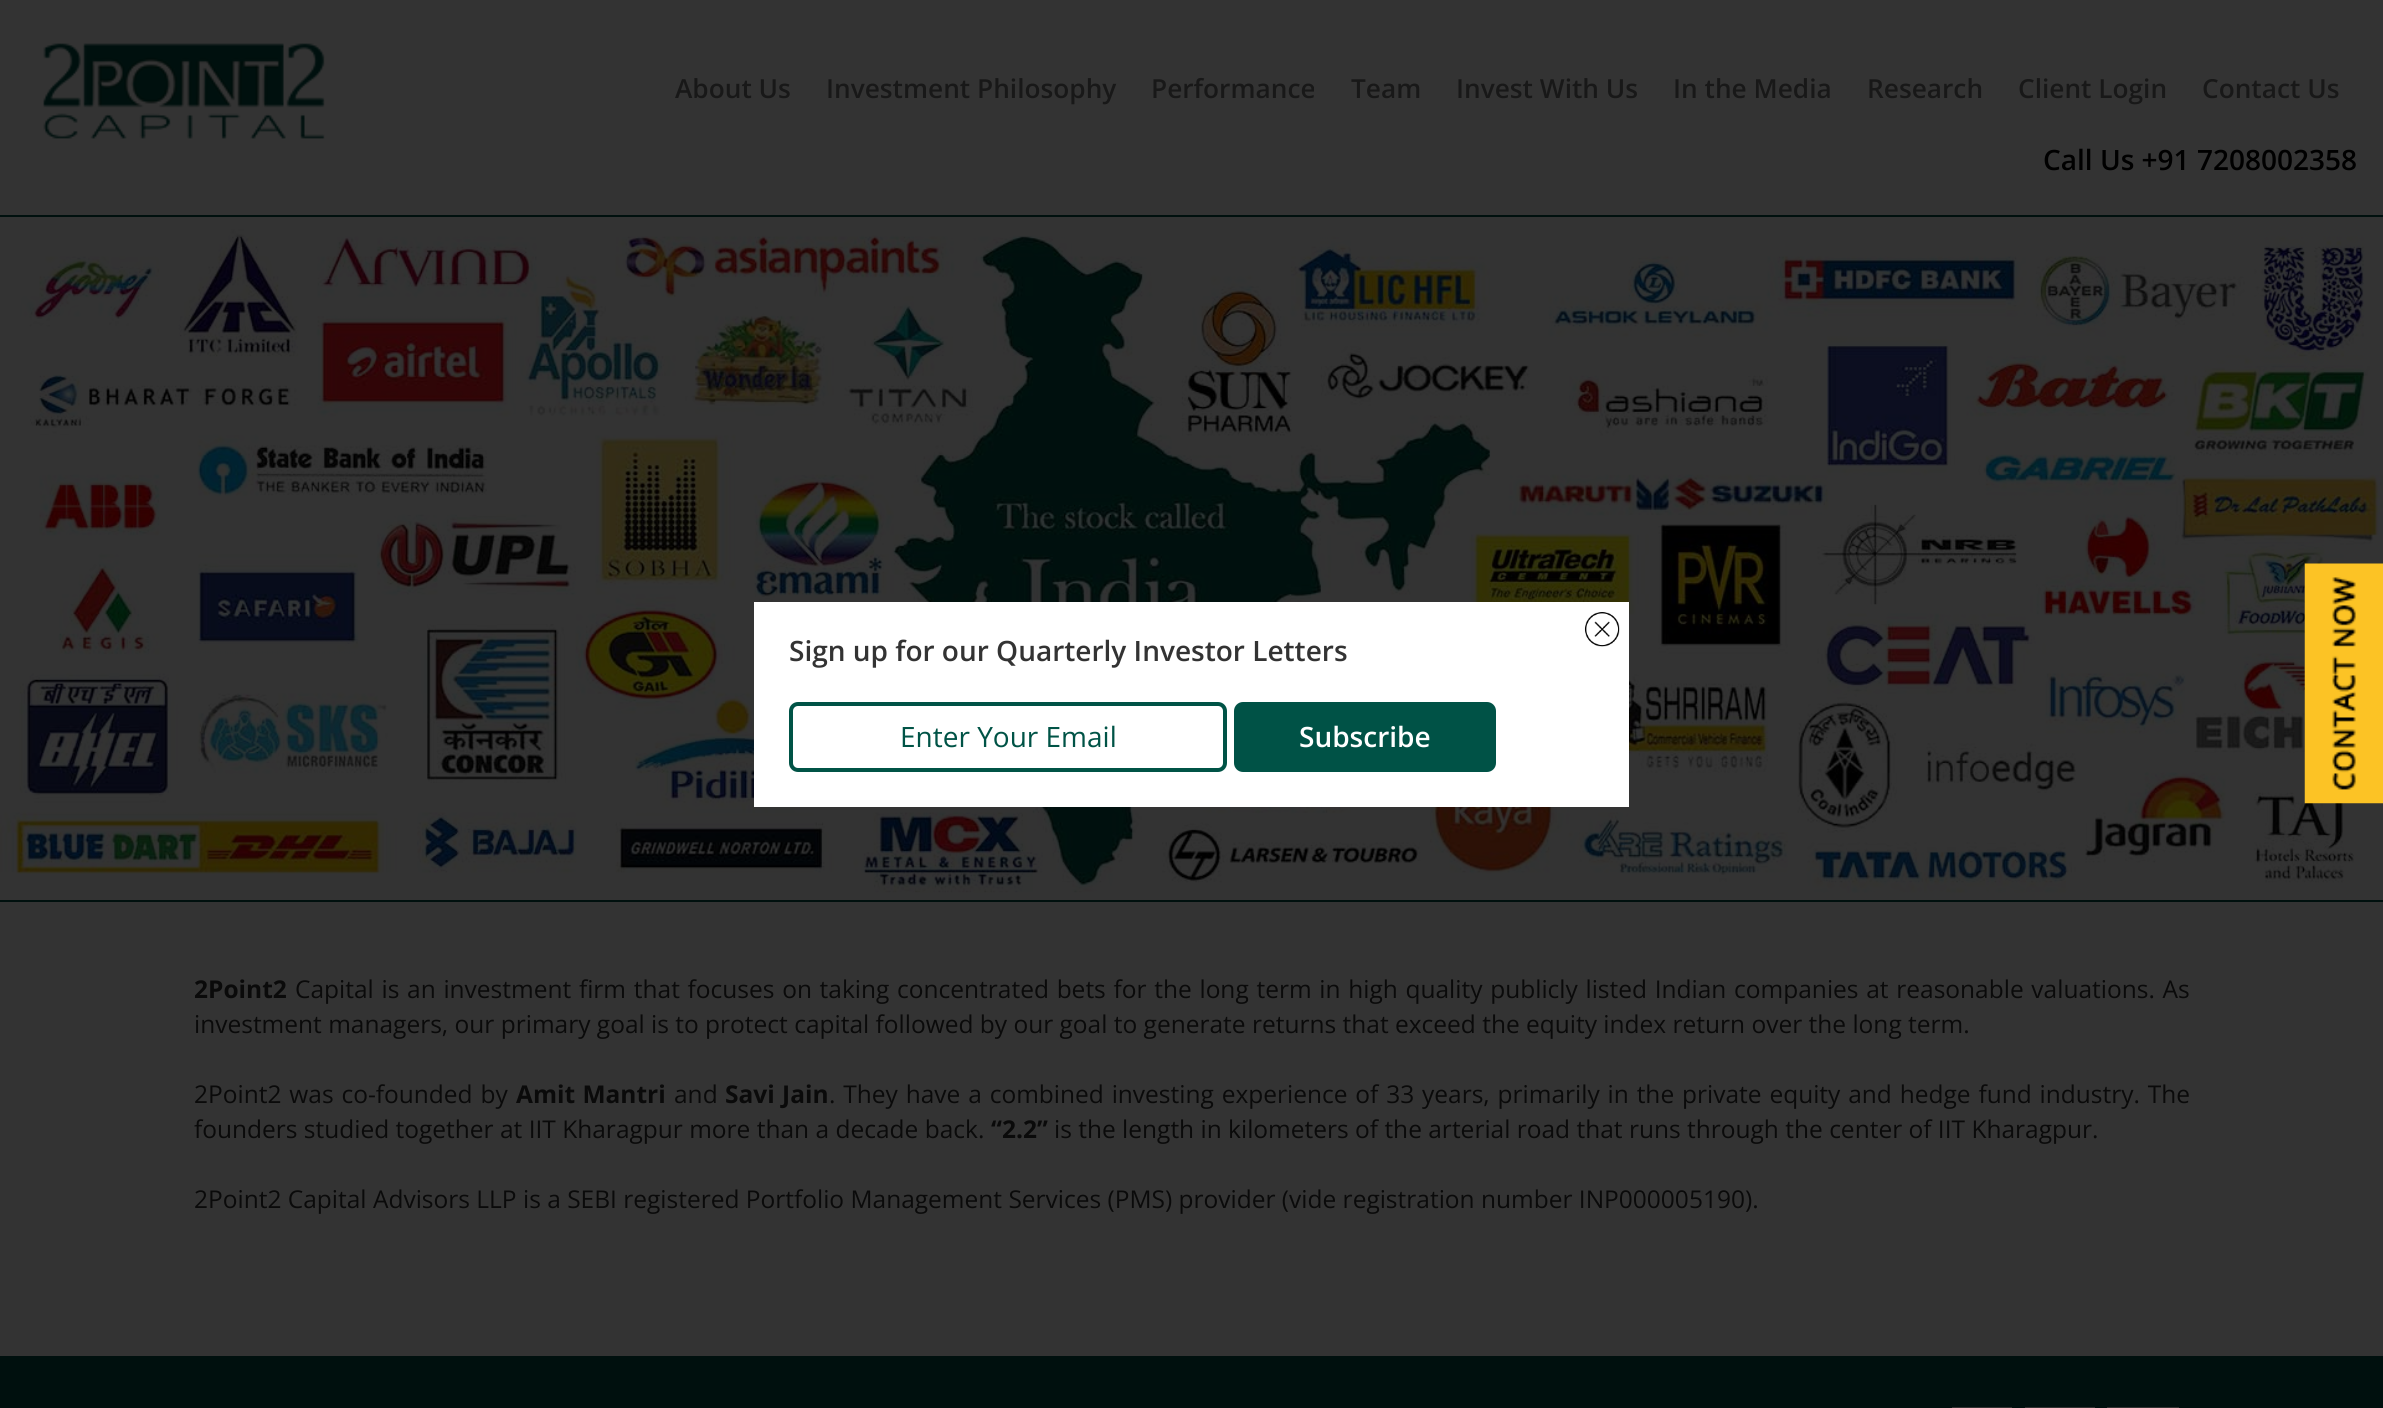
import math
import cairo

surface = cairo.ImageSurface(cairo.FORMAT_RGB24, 2383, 1408)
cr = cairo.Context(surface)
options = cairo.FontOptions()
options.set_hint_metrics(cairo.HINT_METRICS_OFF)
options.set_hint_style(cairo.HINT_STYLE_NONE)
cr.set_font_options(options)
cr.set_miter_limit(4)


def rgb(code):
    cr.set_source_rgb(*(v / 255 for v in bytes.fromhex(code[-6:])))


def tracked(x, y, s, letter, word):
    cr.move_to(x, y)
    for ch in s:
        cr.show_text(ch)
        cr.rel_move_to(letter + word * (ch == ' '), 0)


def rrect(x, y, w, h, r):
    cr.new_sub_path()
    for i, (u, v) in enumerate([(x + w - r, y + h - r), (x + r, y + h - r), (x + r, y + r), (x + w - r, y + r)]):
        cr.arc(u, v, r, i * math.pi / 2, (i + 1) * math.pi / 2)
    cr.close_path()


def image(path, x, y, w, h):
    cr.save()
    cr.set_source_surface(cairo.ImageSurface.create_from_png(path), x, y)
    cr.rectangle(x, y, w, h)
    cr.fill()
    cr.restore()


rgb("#333333")
cr.paint()
rgb("#00100e")
cr.rectangle(0, 215, 2383, 2)
cr.fill()
image("img/1.png", 43, 43, 282, 96)
cr.rectangle(0, 900, 2383, 2)
cr.fill()
image("img/2.png", 0, 229, 2383, 664)
rgb("#ffffff")
cr.rectangle(754, 602, 875, 205)
cr.fill()
image("img/3.png", 1584, 612, 36, 35)
rrect(791, 704, 434, 66, 7)
rgb("#005346")
cr.set_line_width(4)
cr.stroke()
rgb("#005246")
rrect(1234, 702, 262, 70, 9)
cr.fill()
image("img/4.png", 2304, 563, 79, 241)
rgb("#00100e")
cr.rectangle(0, 1356, 2383, 52)
cr.fill()
rgb("#333333")
cr.rectangle(1951, 1406, 62, 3)
cr.fill_preserve()
rgb("#00100e")
cr.set_line_width(2)
cr.stroke()
rgb("#333333")
cr.rectangle(2024, 1406, 72, 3)
cr.fill_preserve()
rgb("#00100e")
cr.stroke()
rgb("#333333")
cr.rectangle(2106, 1406, 74, 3)
cr.fill_preserve()
rgb("#00100e")
cr.stroke()
cr.select_font_face("Open Sans SemiBold")
cr.set_font_size(26.25)
rgb("#181818")
for x, y, s in [
    (675, 98, "About Us"),
    (826, 98, "Investment Philosophy"),
    (1151, 98, "Performance"),
    (1351, 98, "Team"),
    (1456, 98, "Invest With Us"),
    (1673, 98, "In the Media"),
    (1867, 98, "Research"),
    (2018, 98, "Client Login"),
    (2202, 98, "Contact Us"),
]:
    cr.move_to(x, y)
    cr.show_text(s)
cr.set_font_size(28)
rgb("#000000")
cr.move_to(2043, 170)
cr.show_text("Call Us +91 7208002358")
rgb("#333333")
cr.move_to(789, 661)
cr.show_text("Sign up for our Quarterly Investor Letters")
cr.select_font_face("Open Sans")
rgb("#005346")
cr.move_to(900, 747)
cr.show_text("Enter Your Email")
cr.select_font_face("Open Sans SemiBold")
rgb("#ffffff")
cr.move_to(1299, 747)
cr.show_text("Subscribe")
cr.select_font_face("Open Sans", cairo.FONT_SLANT_NORMAL, cairo.FONT_WEIGHT_BOLD)
cr.set_font_size(24.5)
rgb("#0a0a0a")
cr.move_to(194, 998)
cr.show_text("2Point2")
cr.select_font_face("Open Sans")
tracked(295, 998, "Capital is an investment firm that focuses on taking concentrated bets for the long term in high quality publicly listed Indian companies at reasonable valuations. As", 0, 1.35)
cr.move_to(194, 1033)
cr.show_text("investment managers, our primary goal is to protect capital followed by our goal to generate returns that exceed the equity index return over the long term.")
tracked(194, 1103, "2Point2 was co-founded by", 0, 1.5)
cr.select_font_face("Open Sans", cairo.FONT_SLANT_NORMAL, cairo.FONT_WEIGHT_BOLD)
tracked(516, 1103, "Amit Mantri", 0, 1)
cr.select_font_face("Open Sans")
cr.move_to(674, 1103)
cr.show_text("and")
cr.select_font_face("Open Sans", cairo.FONT_SLANT_NORMAL, cairo.FONT_WEIGHT_BOLD)
tracked(725, 1103, "Savi Jain", 0, 1)
cr.select_font_face("Open Sans")
tracked(829, 1103, ". They have a combined investing experience of 33 years, primarily in the private equity and hedge fund industry. The", 0, 1.5)
cr.move_to(194, 1138)
cr.show_text("founders studied together at IIT Kharagpur more than a decade back.")
cr.select_font_face("Open Sans", cairo.FONT_SLANT_NORMAL, cairo.FONT_WEIGHT_BOLD)
cr.move_to(991, 1138)
cr.show_text("“2.2”")
cr.select_font_face("Open Sans")
cr.move_to(1054, 1138)
cr.show_text("is the length in kilometers of the arterial road that runs through the center of IIT Kharagpur.")
cr.move_to(194, 1208)
cr.show_text("2Point2 Capital Advisors LLP is a SEBI registered Portfolio Management Services (PMS) provider (vide registration number INP000005190).")
surface.write_to_png("page.png")
